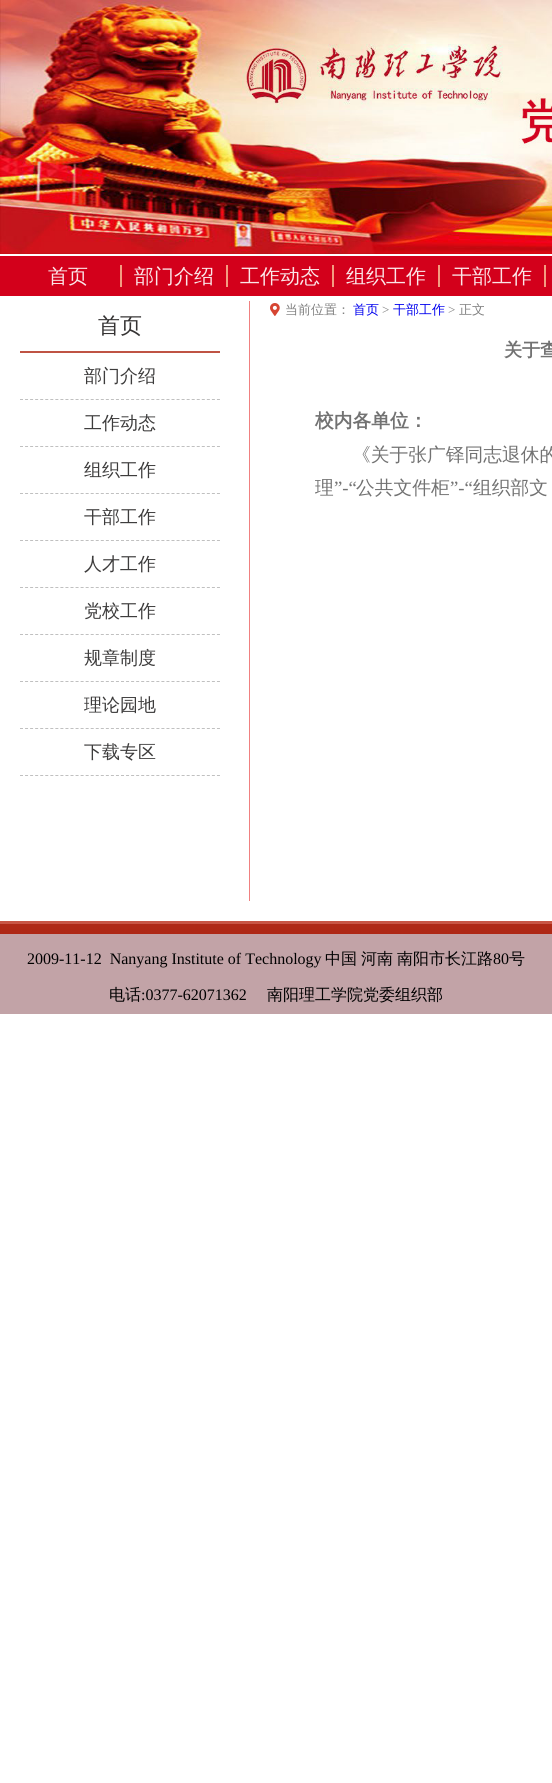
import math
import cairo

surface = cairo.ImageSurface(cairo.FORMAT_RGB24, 552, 1783)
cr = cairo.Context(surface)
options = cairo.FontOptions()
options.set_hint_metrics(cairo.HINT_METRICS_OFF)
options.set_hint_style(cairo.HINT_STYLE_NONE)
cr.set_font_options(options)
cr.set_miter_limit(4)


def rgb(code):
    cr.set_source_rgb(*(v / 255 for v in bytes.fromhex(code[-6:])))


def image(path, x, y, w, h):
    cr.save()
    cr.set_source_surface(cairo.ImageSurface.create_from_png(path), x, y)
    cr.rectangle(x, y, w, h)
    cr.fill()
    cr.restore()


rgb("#ffffff")
cr.paint()
image("img/1.png", 0, 924, 552, 10)
image("img/2.png", 0, 0, 552, 254)
for x, y, w, h, color in [
    (0, 256, 552, 40, "#d3001b"),
    (120, 265, 2, 22, "#f39c81"),
    (226, 265, 2, 22, "#f39c81"),
    (332, 265, 2, 22, "#f39c81"),
    (438, 265, 2, 22, "#f39c81"),
    (544, 265, 2, 22, "#f39c81"),
    (0, 921, 552, 3, "#c85545"),
    (20, 351, 200, 2, "#bf5344"),
]:
    rgb(color)
    cr.rectangle(x, y, w, h)
    cr.fill()
cr.new_path()
cr.move_to(20, 399.5)
cr.line_to(220, 399.5)
rgb("#c0c0c0")
cr.set_line_width(1)
cr.set_dash([3, 2.05])
cr.stroke()
cr.new_path()
cr.move_to(20, 446.5)
cr.line_to(220, 446.5)
cr.stroke()
cr.new_path()
cr.move_to(20, 493.5)
cr.line_to(220, 493.5)
cr.stroke()
cr.new_path()
cr.move_to(20, 540.5)
cr.line_to(220, 540.5)
cr.stroke()
cr.new_path()
cr.move_to(20, 587.5)
cr.line_to(220, 587.5)
cr.stroke()
cr.new_path()
cr.move_to(20, 634.5)
cr.line_to(220, 634.5)
cr.stroke()
cr.new_path()
cr.move_to(20, 681.5)
cr.line_to(220, 681.5)
cr.stroke()
cr.new_path()
cr.move_to(20, 728.5)
cr.line_to(220, 728.5)
cr.stroke()
cr.new_path()
cr.move_to(20, 775.5)
cr.line_to(220, 775.5)
cr.stroke()
rgb("#f08080")
cr.rectangle(249, 301, 1, 600)
cr.fill()
image("img/3.png", 270, 303, 10, 13)
rgb("#c2a3a7")
cr.rectangle(0, 934, 552, 80)
cr.fill()
cr.select_font_face("WenQuanYi Zen Hei Medium")
cr.set_font_size(20)
rgb("#fbe6e8")
for x, y, s in [
    (48, 283, "首页"),
    (134, 283, "部门介绍"),
    (240, 283, "工作动态"),
    (346, 283, "组织工作"),
    (452, 283, "干部工作"),
]:
    cr.move_to(x, y)
    cr.show_text(s)
cr.set_font_size(22)
rgb("#353333")
cr.move_to(98, 333)
cr.show_text("首页")
cr.set_font_size(18)
rgb("#3d3c3c")
for x, y, s in [
    (84, 382, "部门介绍"),
    (84, 429, "工作动态"),
    (84, 476, "组织工作"),
    (84, 523, "干部工作"),
    (84, 570, "人才工作"),
    (84, 617, "党校工作"),
    (84, 664, "规章制度"),
    (84, 711, "理论园地"),
    (84, 758, "下载专区"),
]:
    cr.move_to(x, y)
    cr.show_text(s)
cr.set_font_size(13)
rgb("#808080")
cr.move_to(285, 314)
cr.show_text("当前位置：")
rgb("#0000ee")
cr.move_to(353, 314)
cr.show_text("首页")
cr.select_font_face("Liberation Serif")
rgb("#808080")
cr.move_to(382, 314)
cr.show_text(">")
cr.select_font_face("WenQuanYi Zen Hei Medium")
rgb("#0000ee")
cr.move_to(393, 314)
cr.show_text("干部工作")
cr.select_font_face("Liberation Serif")
rgb("#808080")
cr.move_to(448, 314)
cr.show_text(">")
cr.select_font_face("WenQuanYi Zen Hei Medium")
cr.move_to(459, 314)
cr.show_text("正文")
cr.select_font_face("WenQuanYi Zen Hei", cairo.FONT_SLANT_NORMAL, cairo.FONT_WEIGHT_BOLD)
cr.set_font_size(18)
rgb("#727272")
cr.move_to(504, 356)
cr.show_text("关于查")
cr.set_font_size(18.75)
cr.move_to(315, 427)
cr.show_text("校内各单位：")
cr.select_font_face("WenQuanYi Zen Hei Medium")
cr.move_to(352, 461)
cr.show_text("《关于张广铎同志退休的")
cr.move_to(315, 494)
cr.show_text("理")
cr.select_font_face("Liberation Serif")
cr.move_to(334, 494)
cr.show_text("”-“")
cr.select_font_face("WenQuanYi Zen Hei Medium")
cr.move_to(356, 494)
cr.show_text("公共文件柜")
cr.select_font_face("Liberation Serif")
cr.move_to(450, 494)
cr.show_text("”-“")
cr.select_font_face("WenQuanYi Zen Hei Medium")
cr.move_to(473, 494)
cr.show_text("组织部文")
cr.select_font_face("Liberation Serif")
cr.set_font_size(16)
rgb("#000000")
cr.move_to(27, 964)
cr.show_text("2009-11-12  Nanyang Institute of Technology")
cr.select_font_face("WenQuanYi Zen Hei Medium")
for x, y, s in [
    (325, 964, "中国"),
    (361, 964, "河南"),
    (397, 964, "南阳市长江路"),
]:
    cr.move_to(x, y)
    cr.show_text(s)
cr.select_font_face("Liberation Serif")
cr.move_to(493, 964)
cr.show_text("80")
cr.select_font_face("WenQuanYi Zen Hei Medium")
cr.move_to(509, 964)
cr.show_text("号")
cr.move_to(109, 1000)
cr.show_text("电话")
cr.select_font_face("Liberation Serif")
cr.move_to(141, 1000)
cr.show_text(":0377-62071362")
cr.select_font_face("WenQuanYi Zen Hei Medium")
cr.move_to(267, 1000)
cr.show_text("南阳理工学院党委组织部")
surface.write_to_png("page.png")
